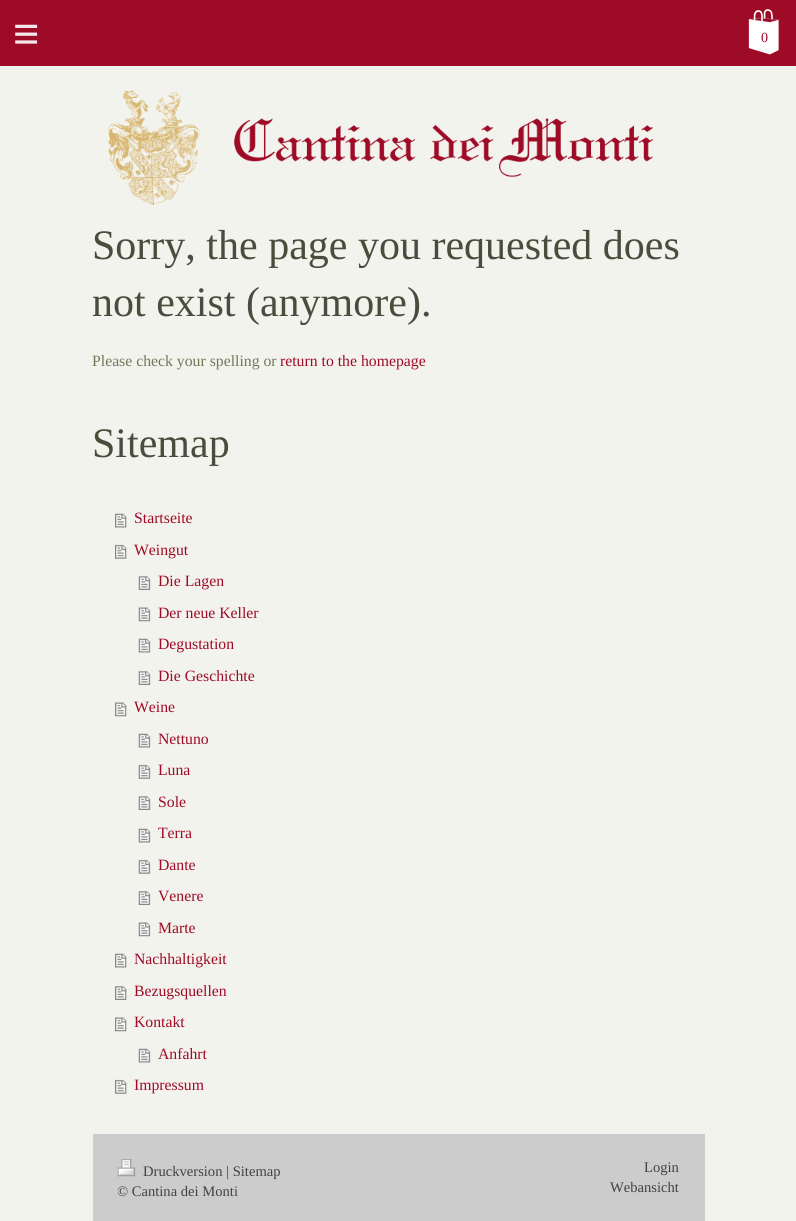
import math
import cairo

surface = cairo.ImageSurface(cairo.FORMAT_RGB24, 796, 1221)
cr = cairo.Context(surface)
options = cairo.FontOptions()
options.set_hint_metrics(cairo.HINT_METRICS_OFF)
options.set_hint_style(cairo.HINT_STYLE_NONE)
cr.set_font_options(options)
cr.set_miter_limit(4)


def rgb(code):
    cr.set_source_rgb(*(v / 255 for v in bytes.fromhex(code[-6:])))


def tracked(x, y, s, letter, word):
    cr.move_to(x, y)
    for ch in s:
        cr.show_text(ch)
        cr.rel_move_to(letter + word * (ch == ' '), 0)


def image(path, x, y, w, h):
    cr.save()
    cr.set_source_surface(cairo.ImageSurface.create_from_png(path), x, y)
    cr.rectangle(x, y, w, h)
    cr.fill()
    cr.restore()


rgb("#f3f3ee")
cr.paint()
rgb("#9e0b26")
cr.rectangle(0, 0, 796, 66)
cr.fill()
image("img/1.png", 748, 9, 31, 46)
image("img/2.png", 115, 513, 12, 15)
image("img/3.png", 115, 544, 12, 15)
image("img/4.png", 138, 576, 13, 14)
image("img/5.png", 138, 607, 13, 15)
image("img/6.png", 138, 638, 13, 15)
image("img/4.png", 138, 671, 13, 14)
image("img/7.png", 115, 702, 12, 15)
image("img/6.png", 138, 733, 13, 15)
image("img/8.png", 138, 764, 13, 15)
image("img/4.png", 138, 796, 13, 14)
image("img/6.png", 138, 828, 13, 15)
image("img/8.png", 138, 859, 13, 15)
image("img/4.png", 138, 891, 13, 14)
image("img/5.png", 138, 922, 13, 15)
image("img/2.png", 115, 953, 12, 15)
image("img/9.png", 115, 986, 12, 14)
image("img/7.png", 115, 1017, 12, 15)
image("img/6.png", 138, 1048, 13, 15)
image("img/3.png", 115, 1079, 12, 15)
image("img/10.png", 108, 90, 546, 115)
rgb("#cccccc")
cr.rectangle(93, 1134, 612, 87)
cr.fill()
image("img/11.png", 117, 1159, 19, 18)
cr.select_font_face("Liberation Sans")
cr.set_font_size(45)
rgb("#f5e7e9")
tracked(13, 49, "≡", 13, 0)
cr.select_font_face("Liberation Serif")
cr.set_font_size(14)
rgb("#9e0b26")
cr.move_to(761, 42)
cr.show_text("0")
cr.set_font_size(42)
rgb("#4c4c3c")
cr.move_to(92, 259)
cr.show_text("Sorry, the page you requested does")
cr.move_to(92, 316)
cr.show_text("not exist (anymore).")
cr.set_font_size(15.75)
rgb("#757559")
cr.move_to(92, 366)
cr.show_text("Please check your spelling or")
rgb("#9e0b26")
cr.move_to(280, 366)
cr.show_text("return to the homepage")
cr.set_font_size(42)
rgb("#4c4c3c")
cr.move_to(92, 457)
cr.show_text("Sitemap")
cr.set_font_size(15.75)
rgb("#9e0b26")
for x, y, s in [
    (134, 523, "Startseite"),
    (134, 555, "Weingut"),
    (158, 586, "Die Lagen"),
    (158, 618, "Der neue Keller"),
    (158, 649, "Degustation"),
    (158, 681, "Die Geschichte"),
    (134, 712, "Weine"),
    (158, 744, "Nettuno"),
    (158, 775, "Luna"),
    (158, 807, "Sole"),
    (158, 838, "Terra"),
    (158, 870, "Dante"),
    (158, 901, "Venere"),
    (158, 933, "Marte"),
    (134, 964, "Nachhaltigkeit"),
    (134, 996, "Bezugsquellen"),
    (134, 1027, "Kontakt"),
    (158, 1059, "Anfahrt"),
    (134, 1090, "Impressum"),
]:
    cr.move_to(x, y)
    cr.show_text(s)
cr.set_font_size(14.6)
rgb("#424242")
cr.move_to(143, 1176)
cr.show_text("Druckversion | Sitemap")
cr.save()
cr.rectangle(118, 1159, 562, 44)
cr.clip()
cr.move_to(117, 1196)
cr.show_text("© Cantina dei Monti")
cr.restore()
cr.move_to(644, 1172)
cr.show_text("Login")
cr.move_to(610, 1192)
cr.show_text("Webansicht")
surface.write_to_png("page.png")
